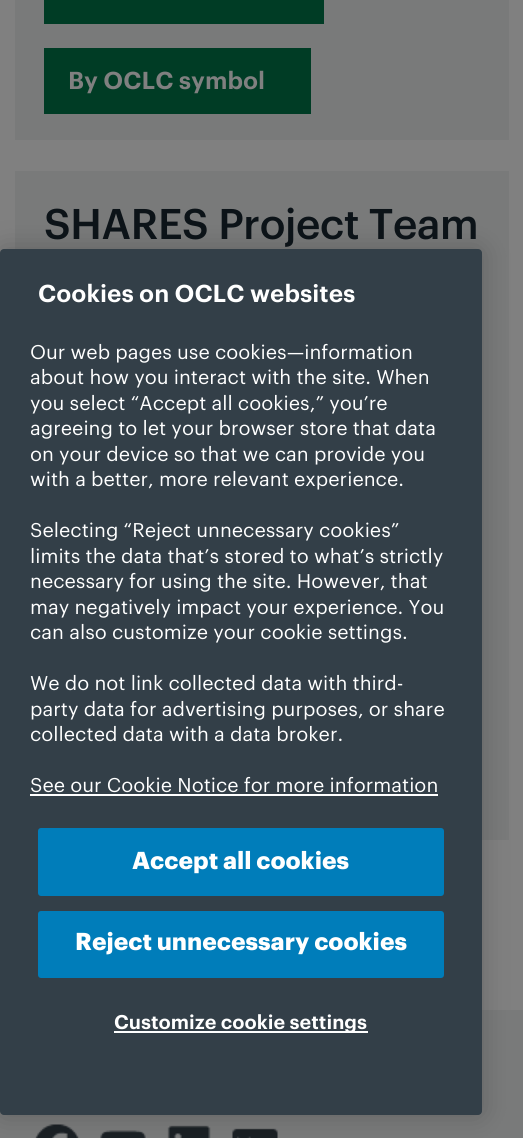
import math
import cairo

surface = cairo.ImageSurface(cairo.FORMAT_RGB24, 523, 1138)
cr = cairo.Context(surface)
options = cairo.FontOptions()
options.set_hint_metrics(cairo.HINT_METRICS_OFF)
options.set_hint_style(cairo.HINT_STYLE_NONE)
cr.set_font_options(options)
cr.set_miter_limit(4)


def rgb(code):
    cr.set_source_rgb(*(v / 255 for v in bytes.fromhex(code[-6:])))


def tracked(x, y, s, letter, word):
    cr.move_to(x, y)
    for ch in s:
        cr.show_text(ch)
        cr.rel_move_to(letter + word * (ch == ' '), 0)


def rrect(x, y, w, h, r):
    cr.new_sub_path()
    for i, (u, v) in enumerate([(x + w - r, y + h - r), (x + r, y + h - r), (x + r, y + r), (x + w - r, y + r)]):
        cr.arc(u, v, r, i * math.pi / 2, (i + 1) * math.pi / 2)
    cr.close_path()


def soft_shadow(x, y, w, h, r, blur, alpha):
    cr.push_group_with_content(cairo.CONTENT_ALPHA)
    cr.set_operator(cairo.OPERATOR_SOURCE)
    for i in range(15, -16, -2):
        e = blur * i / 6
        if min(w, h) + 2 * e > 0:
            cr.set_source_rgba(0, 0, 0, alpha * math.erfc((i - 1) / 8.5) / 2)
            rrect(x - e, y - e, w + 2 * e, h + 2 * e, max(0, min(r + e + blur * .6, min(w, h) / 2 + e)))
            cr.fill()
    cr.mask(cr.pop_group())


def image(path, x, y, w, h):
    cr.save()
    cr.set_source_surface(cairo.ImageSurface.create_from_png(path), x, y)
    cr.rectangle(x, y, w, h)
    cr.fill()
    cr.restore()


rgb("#797a7a")
cr.paint()
for x, y, w, h, color in [
    (0, 0, 523, 1010, "#808080"),
    (15, 0, 494, 140, "#797a7a"),
    (44, 0, 280, 24, "#003c25"),
    (44, 48, 267, 66, "#003c25"),
    (15, 171, 494, 669, "#797a7a"),
]:
    rgb(color)
    cr.rectangle(x, y, w, h)
    cr.fill()
image("img/1.png", 35, 1124, 44, 14)
image("img/2.png", 100, 1130, 46, 8)
image("img/3.png", 167, 1125, 44, 13)
image("img/4.png", 232, 1128, 46, 10)
rgb("#000000")
soft_shadow(0, 249, 482, 866, 4, 13.5, 0.2)
rgb("#333f48")
rrect(0, 249, 482, 866, 4)
cr.fill()
rgb("#ffffff")
cr.rectangle(30, 794, 408, 2)
cr.fill()
rgb("#007dba")
rrect(39, 829, 404, 66, 2)
cr.fill_preserve()
cr.stroke()
rrect(39, 912, 404, 65, 2)
cr.fill_preserve()
cr.stroke()
rgb("#ffffff")
cr.rectangle(114, 1031, 254, 2)
cr.fill()
cr.select_font_face("Graphik SemiBold")
cr.set_font_size(24)
rgb("#808080")
cr.move_to(68, 89)
cr.show_text("By OCLC symbol")
cr.select_font_face("Graphik Medium")
cr.set_font_size(42)
rgb("#0c1318")
tracked(44, 239, "SHARES Project Team", -0.5, 0)
cr.select_font_face("Graphik SemiBold")
cr.set_font_size(24)
rgb("#ffffff")
cr.move_to(38, 302)
cr.show_text("Cookies on OCLC websites")
cr.select_font_face("Graphik")
cr.set_font_size(19.5)
for x, y, s in [
    (30, 359, "Our web pages use cookies—information"),
    (30, 384, "about how you interact with the site. When"),
    (30, 410, "you select “Accept all cookies,” you’re"),
    (30, 435, "agreeing to let your browser store that data"),
    (30, 461, "on your device so that we can provide you"),
    (30, 486, "with a better, more relevant experience."),
    (30, 537, "Selecting “Reject unnecessary cookies”"),
    (30, 563, "limits the data that’s stored to what’s strictly"),
    (30, 588, "necessary for using the site. However, that"),
    (30, 614, "may negatively impact your experience. You"),
    (30, 639, "can also customize your cookie settings."),
    (30, 690, "We do not link collected data with third-"),
    (30, 716, "party data for advertising purposes, or share"),
    (30, 741, "collected data with a data broker."),
    (30, 792, "See our Cookie Notice for more information"),
]:
    cr.move_to(x, y)
    cr.show_text(s)
cr.select_font_face("Graphik", cairo.FONT_SLANT_NORMAL, cairo.FONT_WEIGHT_BOLD)
cr.set_font_size(24)
cr.move_to(132, 869)
cr.show_text("Accept all cookies")
cr.move_to(75, 950)
cr.show_text("Reject unnecessary cookies")
cr.select_font_face("Graphik SemiBold")
cr.set_font_size(19.5)
cr.move_to(114, 1029)
cr.show_text("Customize cookie settings")
surface.write_to_png("page.png")
